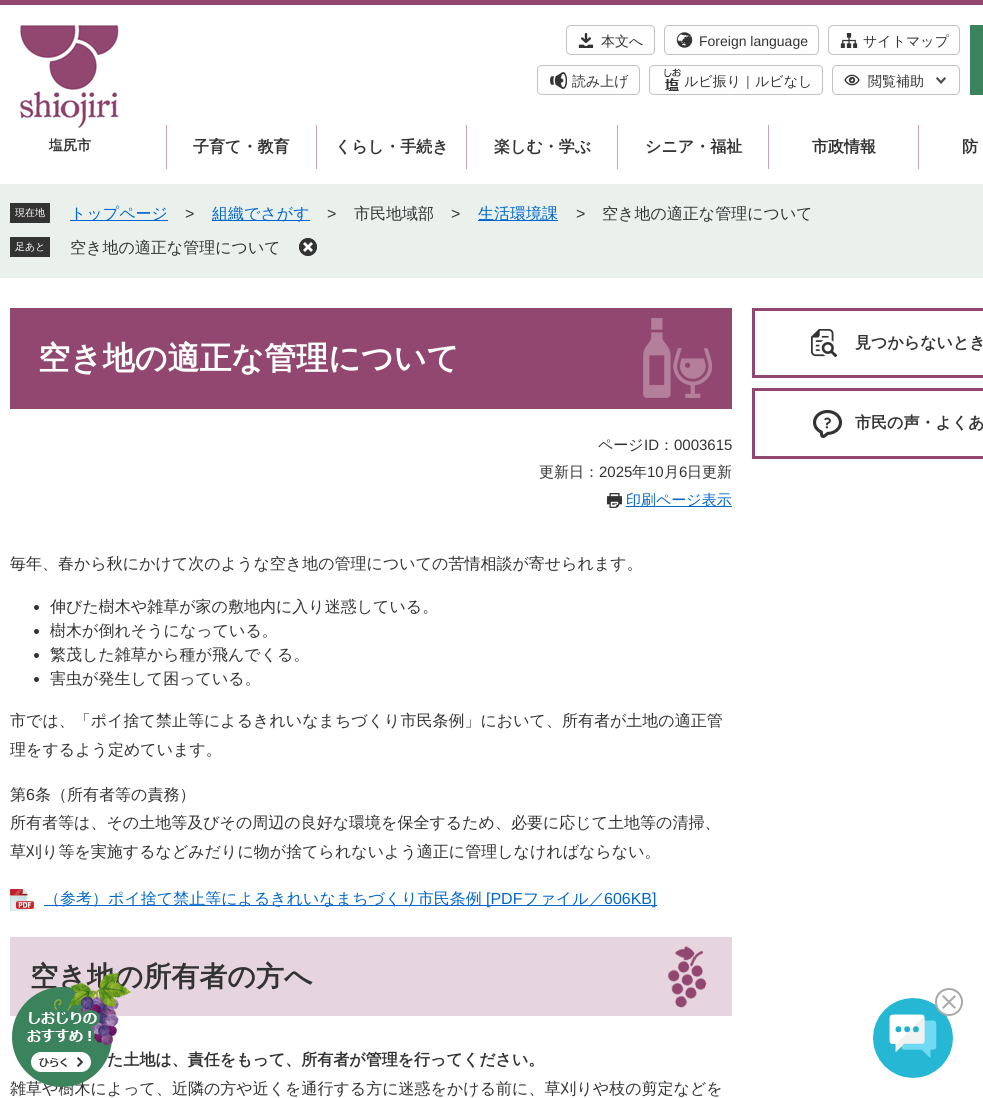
import math
import cairo

surface = cairo.ImageSurface(cairo.FORMAT_RGB24, 983, 1098)
cr = cairo.Context(surface)
options = cairo.FontOptions()
options.set_hint_metrics(cairo.HINT_METRICS_OFF)
options.set_hint_style(cairo.HINT_STYLE_NONE)
cr.set_font_options(options)
cr.set_miter_limit(4)


def rgb(code):
    cr.set_source_rgb(*(v / 255 for v in bytes.fromhex(code[-6:])))


def rrect(x, y, w, h, r):
    cr.new_sub_path()
    for i, (u, v) in enumerate([(x + w - r, y + h - r), (x + r, y + h - r), (x + r, y + r), (x + w - r, y + r)]):
        cr.arc(u, v, r, i * math.pi / 2, (i + 1) * math.pi / 2)
    cr.close_path()


def image(path, x, y, w, h):
    cr.save()
    cr.set_source_surface(cairo.ImageSurface.create_from_png(path), x, y)
    cr.rectangle(x, y, w, h)
    cr.fill()
    cr.restore()


rgb("#ffffff")
cr.paint()
rgb("#924770")
cr.rectangle(0, 0, 983, 5)
cr.fill()
image("img/1.png", 578, 33, 16, 15)
rrect(566.5, 25.5, 88, 29, 4.5)
rgb("#c3c2c2")
cr.set_line_width(1)
cr.stroke()
image("img/2.png", 676, 32, 17, 16)
rrect(664.5, 25.5, 154, 29, 4.5)
cr.stroke()
image("img/3.png", 840, 33, 18, 15)
rrect(828.5, 25.5, 131, 29, 4.5)
cr.stroke()
image("img/4.png", 550, 72, 17, 17)
rrect(537.5, 65.5, 102, 29, 4.5)
cr.stroke()
image("img/5.png", 664, 68, 17, 23)
rrect(649.5, 65.5, 173, 29, 4.5)
cr.stroke()
image("img/6.png", 844, 74, 102, 12)
rrect(832.5, 65.5, 127, 29, 4.5)
cr.stroke()
rgb("#3b835c")
cr.rectangle(970, 25, 13, 70)
cr.fill()
image("img/7.png", 17, 25, 103, 104)
for x, y, w, h, color in [
    (316, 125, 1, 44, "#c8a3b7"),
    (166, 125, 1, 44, "#c8a3b7"),
    (466, 125, 1, 44, "#c8a3b7"),
    (617, 125, 1, 44, "#c8a3b7"),
    (768, 125, 1, 44, "#c8a3b7"),
    (918, 125, 1, 44, "#c8a3b7"),
    (0, 184, 983, 94, "#eaf1ed"),
    (10, 203, 40, 20, "#333333"),
    (70, 220, 98, 1, "#0066cc"),
    (212, 220, 98, 1, "#0066cc"),
    (478, 220, 80, 1, "#0066cc"),
    (10, 237, 40, 20, "#333333"),
]:
    rgb(color)
    cr.rectangle(x, y, w, h)
    cr.fill()
cr.arc(308, 247, 9, 0, 2 * math.pi)
cr.fill()
image("img/8.png", 299, 238, 18, 18)
rgb("#924770")
cr.rectangle(10, 308, 722, 101)
cr.fill()
image("img/9.png", 643, 318, 69, 80)
image("img/10.png", 607, 493, 15, 15)
rgb("#0066cc")
cr.rectangle(626, 506, 106, 1)
cr.fill()
rgb("#333333")
cr.arc(36.5, 607.5, 2.5, 0, 2 * math.pi)
cr.fill()
cr.arc(36.5, 631.5, 2.5, 0, 2 * math.pi)
cr.fill()
cr.arc(36.5, 655.5, 2.5, 0, 2 * math.pi)
cr.fill()
cr.arc(36.5, 679.5, 2.5, 0, 2 * math.pi)
cr.fill()
image("img/11.png", 10, 889, 24, 22)
rgb("#0066cc")
cr.rectangle(44, 905, 613, 1)
cr.fill()
rgb("#e6d5de")
cr.rectangle(10, 937, 722, 79)
cr.fill()
image("img/12.png", 667, 946, 40, 62)
image("img/13.png", 811, 329, 26, 28)
cr.rectangle(753.5, 309.5, 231, 67)
rgb("#924770")
cr.set_line_width(3)
cr.stroke()
image("img/14.png", 813, 410, 29, 28)
cr.rectangle(753.5, 389.5, 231, 68)
cr.stroke()
image("img/16.png", 873, 988, 90, 90)
cr.select_font_face("WenQuanYi Zen Hei Medium")
cr.set_font_size(14)
rgb("#333333")
cr.move_to(601, 46)
cr.show_text("本文へ")
cr.select_font_face("Liberation Sans")
cr.move_to(699, 46)
cr.show_text("Foreign language")
cr.select_font_face("WenQuanYi Zen Hei Medium")
for x, y, s in [
    (863, 46, "サイトマップ"),
    (572, 86, "読み上げ"),
    (684, 86, "ルビ振り"),
]:
    cr.move_to(x, y)
    cr.show_text(s)
cr.select_font_face("Liberation Sans")
rgb("#666666")
cr.move_to(746, 86)
cr.show_text("|")
cr.select_font_face("WenQuanYi Zen Hei Medium")
rgb("#333333")
cr.move_to(755, 86)
cr.show_text("ルビなし")
cr.move_to(868, 86)
cr.show_text("閲覧補助")
cr.select_font_face("WenQuanYi Zen Hei", cairo.FONT_SLANT_NORMAL, cairo.FONT_WEIGHT_BOLD)
cr.move_to(49, 150)
cr.show_text("塩尻市")
cr.set_font_size(16)
for x, y, s in [
    (193, 152, "子育て・教育"),
    (335, 152, "くらし・手続き"),
    (494, 152, "楽しむ・学ぶ"),
    (645, 152, "シニア・福祉"),
    (812, 152, "市政情報"),
    (962, 152, "防"),
]:
    cr.move_to(x, y)
    cr.show_text(s)
cr.select_font_face("WenQuanYi Zen Hei Medium")
cr.set_font_size(10)
rgb("#ffffff")
cr.move_to(15, 216)
cr.show_text("現在地")
cr.set_font_size(16)
rgb("#0066cc")
cr.move_to(70, 219)
cr.show_text("トップページ")
cr.select_font_face("Liberation Sans")
rgb("#333333")
cr.move_to(185, 219)
cr.show_text(">")
cr.select_font_face("WenQuanYi Zen Hei Medium")
rgb("#0066cc")
cr.move_to(212, 219)
cr.show_text("組織でさがす")
cr.select_font_face("Liberation Sans")
rgb("#333333")
cr.move_to(327, 219)
cr.show_text(">")
cr.select_font_face("WenQuanYi Zen Hei Medium")
cr.move_to(354, 219)
cr.show_text("市民地域部")
cr.select_font_face("Liberation Sans")
cr.move_to(451, 219)
cr.show_text(">")
cr.select_font_face("WenQuanYi Zen Hei Medium")
rgb("#0066cc")
cr.move_to(478, 219)
cr.show_text("生活環境課")
cr.select_font_face("Liberation Sans")
rgb("#333333")
cr.move_to(576, 219)
cr.show_text(">")
cr.select_font_face("WenQuanYi Zen Hei Medium")
cr.move_to(602, 219)
cr.show_text("空き地の適正な管理について")
cr.set_font_size(10)
rgb("#ffffff")
cr.move_to(15, 250)
cr.show_text("足あと")
cr.set_font_size(16)
rgb("#333333")
cr.move_to(70, 253)
cr.show_text("空き地の適正な管理について")
cr.select_font_face("WenQuanYi Zen Hei", cairo.FONT_SLANT_NORMAL, cairo.FONT_WEIGHT_BOLD)
cr.set_font_size(32)
rgb("#ffffff")
cr.move_to(38, 369)
cr.show_text("空き地の適正な管理について")
cr.select_font_face("WenQuanYi Zen Hei Medium")
cr.set_font_size(15)
rgb("#333333")
cr.move_to(598, 450)
cr.show_text("ページ")
cr.select_font_face("Liberation Sans")
cr.move_to(644, 450)
cr.show_text("ID")
cr.select_font_face("WenQuanYi Zen Hei Medium")
cr.move_to(659, 450)
cr.show_text("：")
cr.select_font_face("Liberation Sans")
cr.move_to(674, 450)
cr.show_text("0003615")
cr.select_font_face("WenQuanYi Zen Hei Medium")
cr.move_to(539, 477)
cr.show_text("更新日：")
cr.select_font_face("Liberation Sans")
cr.move_to(599, 477)
cr.show_text("2025")
cr.select_font_face("WenQuanYi Zen Hei Medium")
cr.move_to(632, 477)
cr.show_text("年")
cr.select_font_face("Liberation Sans")
cr.move_to(647, 477)
cr.show_text("10")
cr.select_font_face("WenQuanYi Zen Hei Medium")
cr.move_to(664, 477)
cr.show_text("月")
cr.select_font_face("Liberation Sans")
cr.move_to(679, 477)
cr.show_text("6")
cr.select_font_face("WenQuanYi Zen Hei Medium")
cr.move_to(687, 477)
cr.show_text("日更新")
rgb("#0066cc")
cr.move_to(626, 505)
cr.show_text("印刷ページ表示")
cr.set_font_size(16)
rgb("#333333")
for x, y, s in [
    (10, 569, "毎年、春から秋にかけて次のような空き地の管理についての苦情相談が寄せられます。"),
    (50, 612, "伸びた樹木や雑草が家の敷地内に入り迷惑している。"),
    (50, 636, "樹木が倒れそうになっている。"),
    (50, 660, "繁茂した雑草から種が飛んでくる。"),
    (50, 684, "害虫が発生して困っている。"),
    (10, 726, "市では、「ポイ捨て禁止等によるきれいなまちづくり市民条例」において、所有者が土地の適正管"),
    (10, 755, "理をするよう定めています。"),
    (10, 800, "第"),
]:
    cr.move_to(x, y)
    cr.show_text(s)
cr.select_font_face("Liberation Sans")
cr.move_to(26, 800)
cr.show_text("6")
cr.select_font_face("WenQuanYi Zen Hei Medium")
for x, y, s in [
    (35, 800, "条（所有者等の責務）"),
    (10, 828, "所有者等は、その土地等及びその周辺の良好な環境を保全するため、必要に応じて土地等の清掃、"),
    (10, 857, "草刈り等を実施するなどみだりに物が捨てられないよう適正に管理しなければならない。"),
]:
    cr.move_to(x, y)
    cr.show_text(s)
rgb("#0066cc")
cr.move_to(44, 904)
cr.show_text("（参考）ポイ捨て禁止等によるきれいなまちづくり市民条例")
cr.select_font_face("Liberation Sans")
cr.move_to(486, 904)
cr.show_text("[PDF")
cr.select_font_face("WenQuanYi Zen Hei Medium")
cr.move_to(523, 904)
cr.show_text("ファイル／")
cr.select_font_face("Liberation Sans")
cr.move_to(604, 904)
cr.show_text("606KB]")
cr.select_font_face("WenQuanYi Zen Hei", cairo.FONT_SLANT_NORMAL, cairo.FONT_WEIGHT_BOLD)
cr.set_font_size(28)
rgb("#333333")
cr.move_to(30, 986)
cr.show_text("空き地の所有者の方へ")
cr.set_font_size(16)
cr.move_to(107, 1065)
cr.show_text("た土地は、責任をもって、所有者が管理を行ってください。")
cr.select_font_face("WenQuanYi Zen Hei Medium")
cr.move_to(10, 1094)
cr.show_text("雑草や樹木によって、近隣の方や近くを通行する方に迷惑をかける前に、草刈りや枝の剪定などを")
cr.select_font_face("WenQuanYi Zen Hei", cairo.FONT_SLANT_NORMAL, cairo.FONT_WEIGHT_BOLD)
cr.move_to(855, 348)
cr.show_text("見つからないとき")
cr.move_to(855, 428)
cr.show_text("市民の声・よくあ")
image("img/15.png", 12, 972, 120, 115)
surface.write_to_png("page.png")
